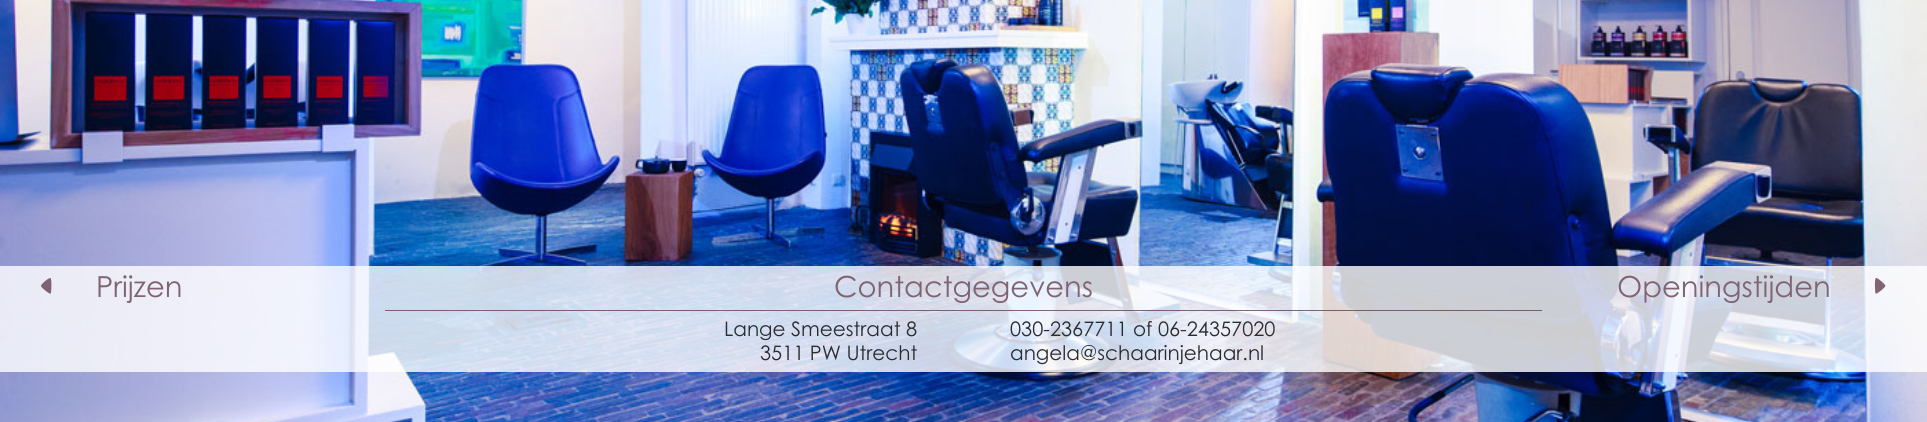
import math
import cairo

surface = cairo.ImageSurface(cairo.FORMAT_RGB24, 1927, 422)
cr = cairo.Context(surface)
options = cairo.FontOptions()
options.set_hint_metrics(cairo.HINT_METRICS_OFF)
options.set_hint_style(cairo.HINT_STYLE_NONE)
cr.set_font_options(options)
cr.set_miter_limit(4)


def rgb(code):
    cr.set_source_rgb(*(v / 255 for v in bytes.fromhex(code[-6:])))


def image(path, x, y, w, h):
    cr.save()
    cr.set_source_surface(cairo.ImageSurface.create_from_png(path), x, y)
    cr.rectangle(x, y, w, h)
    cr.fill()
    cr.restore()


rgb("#ffffff")
cr.paint()
image("img/1.png", 0, 0, 1927, 422)
cr.set_source_rgba(1, 1, 1, 0.8)
cr.rectangle(0, 266, 1927, 106)
cr.fill()
image("img/2.png", 41, 278, 11, 16)
image("img/3.png", 1874, 278, 12, 16)
cr.set_source_rgba(0.396, 0.251, 0.318, 0.8)
cr.rectangle(385, 310, 1157, 1)
cr.fill()
cr.select_font_face("Century Gothic")
cr.set_font_size(29)
rgb("#806372")
for x, y, s in [
    (96, 297, "Prijzen"),
    (834, 297, "Contactgegevens"),
    (1617, 297, "Openingstijden"),
]:
    cr.move_to(x, y)
    cr.show_text(s)
cr.set_font_size(20)
rgb("#2a2c30")
for x, y, s in [
    (724, 336, "Lange Smeestraat 8"),
    (760, 360, "3511 PW Utrecht"),
    (1010, 336, "030-2367711 of 06-24357020"),
    (1010, 360, "angela@schaarinjehaar.nl"),
]:
    cr.move_to(x, y)
    cr.show_text(s)
surface.write_to_png("page.png")
